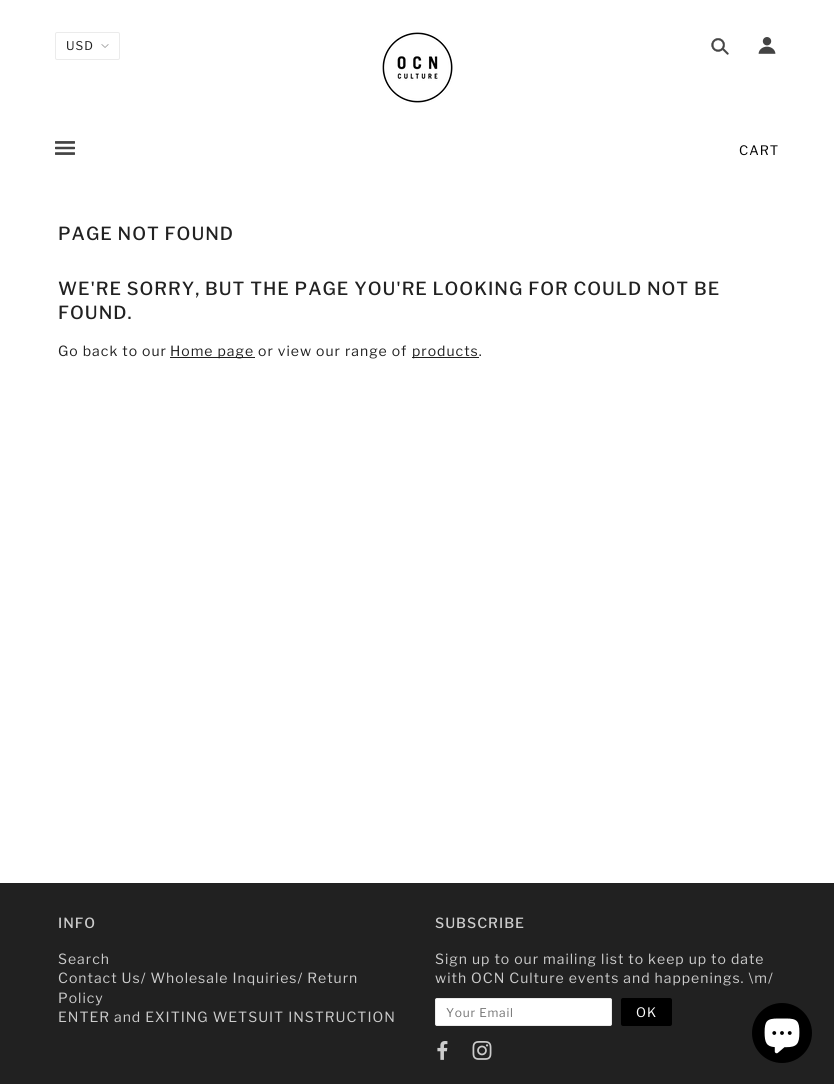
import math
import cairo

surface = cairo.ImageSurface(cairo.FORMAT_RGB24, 834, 1084)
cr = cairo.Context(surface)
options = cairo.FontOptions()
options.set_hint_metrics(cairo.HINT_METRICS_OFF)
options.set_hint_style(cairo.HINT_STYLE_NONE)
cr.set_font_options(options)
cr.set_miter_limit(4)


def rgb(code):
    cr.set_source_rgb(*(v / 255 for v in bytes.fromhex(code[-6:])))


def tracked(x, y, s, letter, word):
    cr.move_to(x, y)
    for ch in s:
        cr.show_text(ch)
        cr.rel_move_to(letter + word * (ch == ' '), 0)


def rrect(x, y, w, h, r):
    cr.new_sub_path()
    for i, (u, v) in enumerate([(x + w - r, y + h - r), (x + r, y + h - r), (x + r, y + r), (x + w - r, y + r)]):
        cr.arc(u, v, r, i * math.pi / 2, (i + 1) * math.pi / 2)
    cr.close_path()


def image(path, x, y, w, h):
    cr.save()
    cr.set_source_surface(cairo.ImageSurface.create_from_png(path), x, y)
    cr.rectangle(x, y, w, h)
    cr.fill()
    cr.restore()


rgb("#ffffff")
cr.paint()
image("img/1.png", 101, 44, 8, 4)
rrect(55.5, 32.5, 64, 27, 1.5)
rgb("#ebebeb")
cr.set_line_width(1)
cr.stroke()
image("img/2.png", 382, 32, 71, 71)
image("img/3.png", 711, 38, 18, 17)
image("img/4.png", 758, 37, 18, 17)
image("img/5.png", 55, 141, 20, 14)
for x, y, w, h, color in [
    (170, 357, 85, 1, "#212121"),
    (412, 357, 67, 1, "#212121"),
    (0, 883, 834, 201, "#212121"),
]:
    rgb(color)
    cr.rectangle(x, y, w, h)
    cr.fill()
rgb("#ffffff")
rrect(435.5, 998.5, 176, 27, 1.5)
cr.fill_preserve()
rgb("#ebebeb")
cr.stroke()
rgb("#000000")
rrect(621, 998, 51, 28, 2)
cr.fill()
image("img/6.png", 437, 1041, 11, 19)
image("img/7.png", 472, 1041, 20, 19)
cr.arc(782, 1033, 30, 0, 2 * math.pi)
cr.fill()
image("img/8.png", 764, 1018, 36, 36)
cr.select_font_face("Libre Franklin")
cr.set_font_size(12)
rgb("#212121")
tracked(66, 50, "USD", 1, 0)
cr.set_font_size(13)
rgb("#000000")
tracked(739, 155, "CART", 1, 0)
cr.select_font_face("Libre Franklin Medium")
cr.set_font_size(18)
rgb("#212121")
for x, y, s in [
    (58, 240, "PAGE NOT FOUND"),
    (58, 295, "WE'RE SORRY, BUT THE PAGE YOU'RE LOOKING FOR COULD NOT BE"),
    (58, 319, "FOUND."),
]:
    tracked(x, y, s, 1, 0)
cr.select_font_face("Libre Franklin")
cr.set_font_size(14)
for x, y, s in [
    (58, 356, "Go back to our"),
    (170, 356, "Home page or view our range of"),
    (412, 356, "products."),
]:
    tracked(x, y, s, 1, 0)
cr.select_font_face("Libre Franklin Medium")
rgb("#cccccc")
tracked(58, 928, "INFO", 1, 0)
cr.select_font_face("Libre Franklin")
for x, y, s in [
    (58, 964, "Search"),
    (58, 983, "Contact Us/ Wholesale Inquiries/ Return"),
    (58, 1003, "Policy"),
    (58, 1022, "ENTER and EXITING WETSUIT INSTRUCTION"),
]:
    tracked(x, y, s, 1, 0)
cr.select_font_face("Libre Franklin Medium")
tracked(435, 928, "SUBSCRIBE", 1, 0)
cr.select_font_face("Libre Franklin")
tracked(435, 964, "Sign up to our mailing list to keep up to date", 1, 0)
tracked(435, 983, "with OCN Culture events and happenings. \\m/", 1, 0)
cr.set_font_size(12)
rgb("#757575")
tracked(446, 1017, "Your Email", 0.75, 0)
cr.set_font_size(13)
rgb("#ffffff")
tracked(636, 1017, "OK", 1, 0)
surface.write_to_png("page.png")
